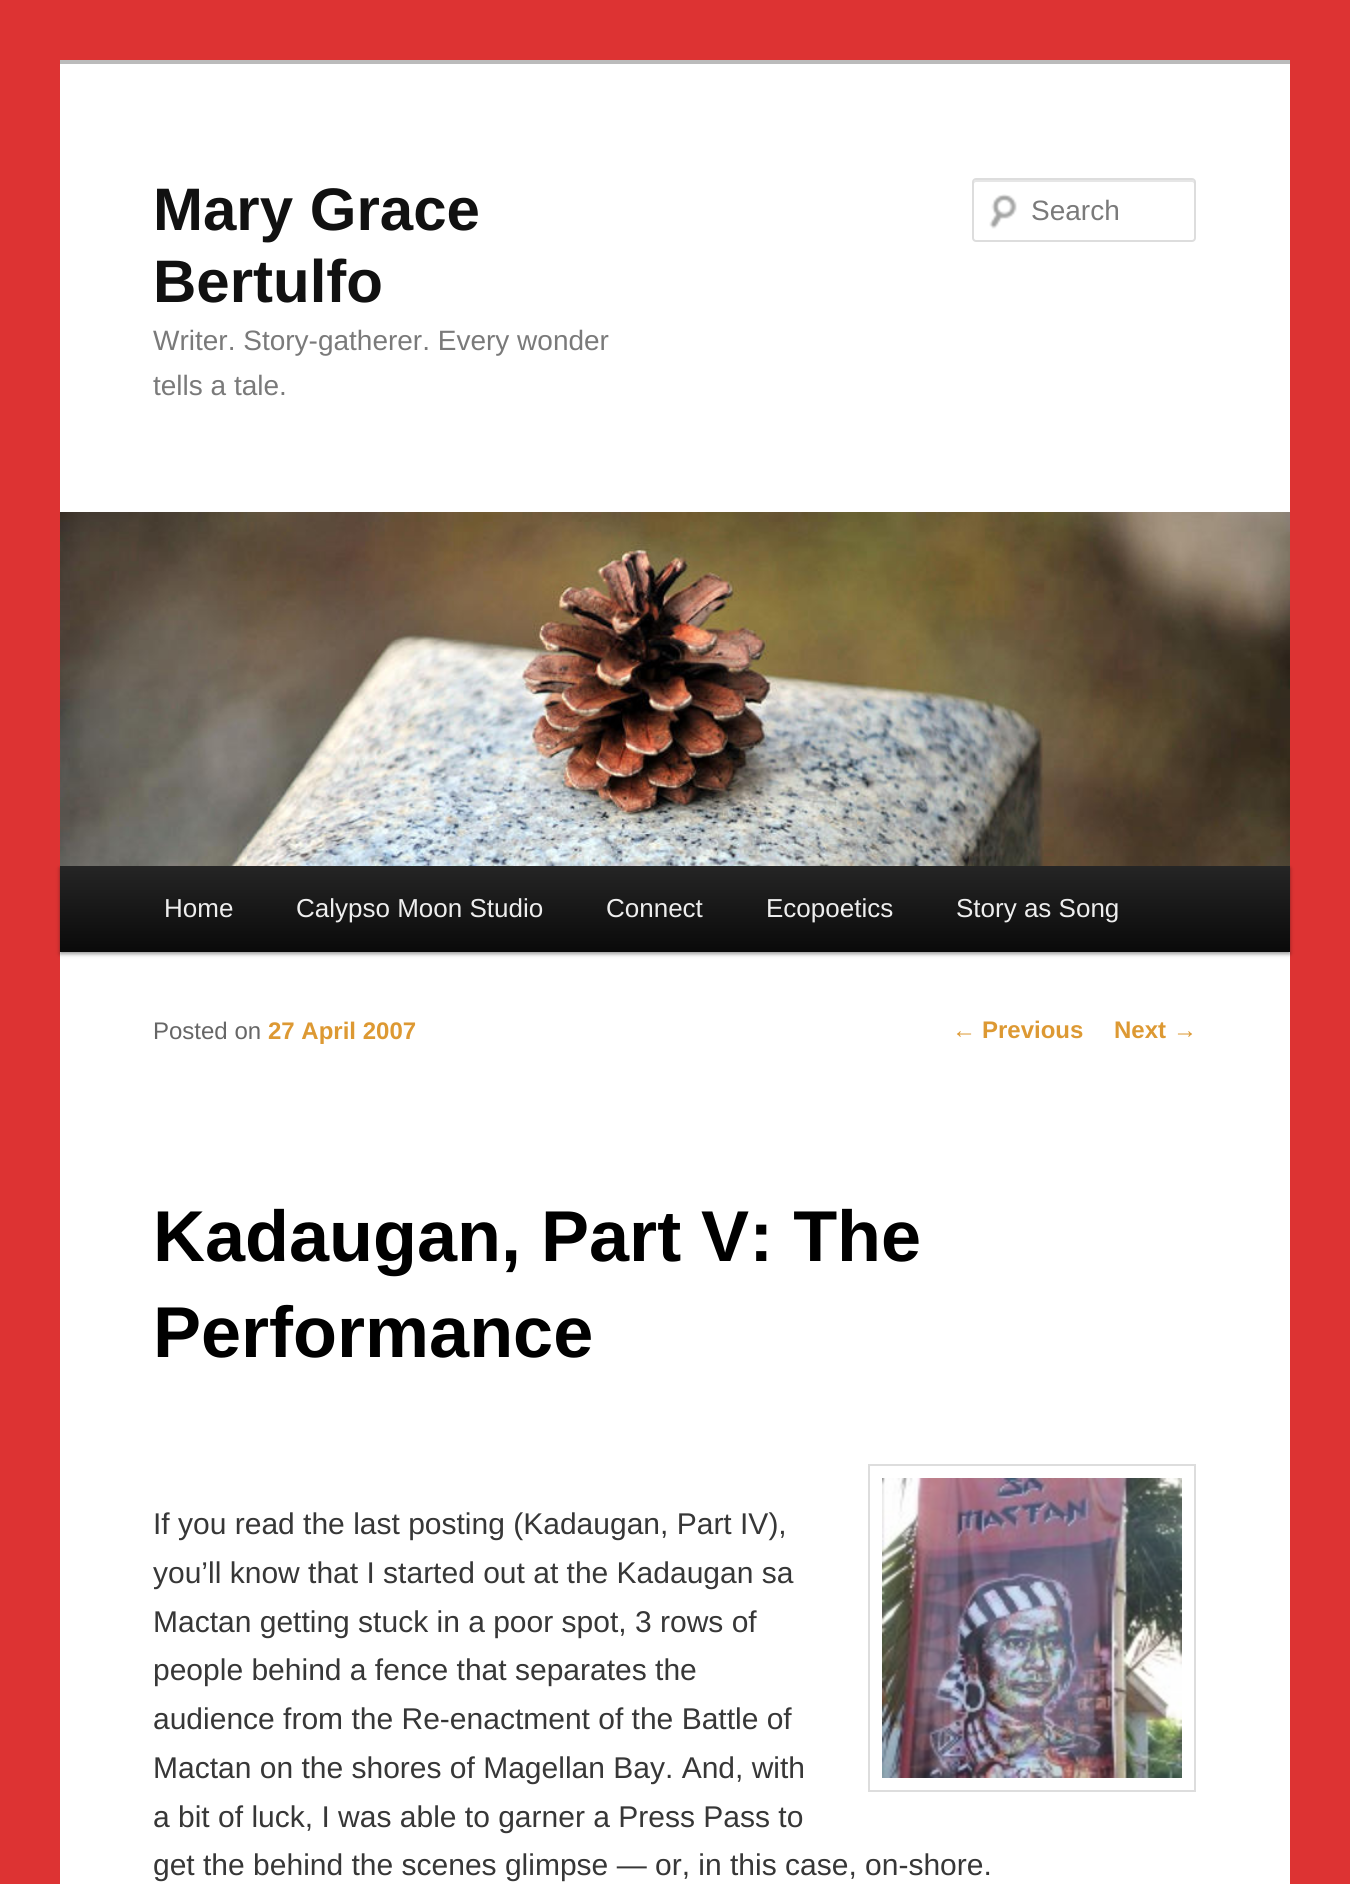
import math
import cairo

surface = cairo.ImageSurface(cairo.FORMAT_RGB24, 1350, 1884)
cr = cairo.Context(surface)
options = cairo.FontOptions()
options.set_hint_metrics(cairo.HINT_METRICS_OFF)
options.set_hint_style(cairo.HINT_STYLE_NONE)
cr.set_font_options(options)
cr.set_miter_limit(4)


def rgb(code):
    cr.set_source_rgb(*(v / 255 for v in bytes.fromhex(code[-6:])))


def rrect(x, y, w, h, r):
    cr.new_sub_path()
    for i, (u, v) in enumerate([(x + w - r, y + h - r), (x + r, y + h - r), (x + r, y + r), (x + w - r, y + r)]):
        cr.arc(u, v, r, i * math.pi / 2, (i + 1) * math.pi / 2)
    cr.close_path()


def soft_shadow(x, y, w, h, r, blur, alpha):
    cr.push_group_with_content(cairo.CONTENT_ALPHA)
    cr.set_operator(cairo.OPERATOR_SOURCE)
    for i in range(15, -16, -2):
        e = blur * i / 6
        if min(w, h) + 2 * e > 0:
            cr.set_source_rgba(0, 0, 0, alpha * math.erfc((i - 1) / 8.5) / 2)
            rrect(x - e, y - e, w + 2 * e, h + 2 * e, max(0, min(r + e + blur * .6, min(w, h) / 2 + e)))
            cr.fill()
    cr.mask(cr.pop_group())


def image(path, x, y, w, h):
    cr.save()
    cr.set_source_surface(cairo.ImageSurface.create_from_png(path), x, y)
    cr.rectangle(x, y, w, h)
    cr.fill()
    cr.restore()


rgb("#dd3333")
cr.paint()
rgb("#ffffff")
cr.rectangle(60, 64, 1230, 1820)
cr.fill()
rgb("#bbbbbb")
cr.rectangle(60, 60, 1230, 4)
cr.fill()
image("img/1.png", 989, 194, 28, 35)
rgb("#e6e6e6")
cr.new_path()
cr.move_to(976, 182)
cr.line_to(1192, 182)
cr.curve_to(1193, 182, 1194, 183, 1194, 184)
cr.line_to(1194, 182)
cr.curve_to(1194, 181, 1193, 180, 1192, 180)
cr.line_to(976, 180)
cr.curve_to(975, 180, 974, 181, 974, 182)
cr.line_to(974, 184)
cr.curve_to(974, 183, 975, 182, 976, 182)
cr.close_path()
cr.fill()
rrect(973, 179, 222, 62, 3)
rgb("#dddddd")
cr.stroke()
rgb("#000000")
soft_shadow(60, 868, 1230, 86, 0, 2, 0.4)
image("img/2.png", 60, 512, 1230, 354)
gradient = cairo.LinearGradient(675, 866, 675, 952)
gradient.add_color_stop_rgba(0, 0.145, 0.145, 0.145, 1)
gradient.add_color_stop_rgba(1, 0.039, 0.039, 0.039, 1)
cr.set_source(gradient)
cr.rectangle(60, 866, 1230, 86)
cr.fill()
cr.rectangle(869, 1465, 326, 326)
rgb("#dddddd")
cr.stroke()
image("img/3.png", 882, 1478, 300, 300)
cr.select_font_face("Liberation Sans", cairo.FONT_SLANT_NORMAL, cairo.FONT_WEIGHT_BOLD)
cr.set_font_size(60)
rgb("#111111")
cr.move_to(153, 230)
cr.show_text("Mary Grace")
cr.move_to(153, 302)
cr.show_text("Bertulfo")
cr.select_font_face("Liberation Sans")
cr.set_font_size(28)
rgb("#7a7a7a")
for x, y, s in [
    (153, 350, "Writer. Story-gatherer. Every wonder"),
    (153, 395, "tells a tale."),
    (1031, 220, "Search"),
]:
    cr.move_to(x, y)
    cr.show_text(s)
cr.set_font_size(26)
rgb("#eeeeee")
for x, y, s in [
    (164, 917, "Home"),
    (296, 917, "Calypso Moon Studio"),
    (606, 917, "Connect"),
    (766, 917, "Ecopoetics"),
    (956, 917, "Story as Song"),
]:
    cr.move_to(x, y)
    cr.show_text(s)
cr.set_font_size(24)
rgb("#666666")
cr.move_to(153, 1039)
cr.show_text("Posted on")
cr.select_font_face("Liberation Sans", cairo.FONT_SLANT_NORMAL, cairo.FONT_WEIGHT_BOLD)
rgb("#dd9933")
cr.move_to(268, 1039)
cr.show_text("27 April 2007")
cr.set_font_size(72)
rgb("#000000")
cr.move_to(153, 1261)
cr.show_text("Kadaugan, Part V: The")
cr.move_to(153, 1357)
cr.show_text("Performance")
cr.select_font_face("Liberation Sans")
cr.set_font_size(30)
rgb("#373737")
for x, y, s in [
    (153, 1534, "If you read the last posting (Kadaugan, Part IV),"),
    (153, 1583, "you’ll know that I started out at the Kadaugan sa"),
    (153, 1632, "Mactan getting stuck in a poor spot, 3 rows of"),
    (153, 1680, "people behind a fence that separates the"),
    (153, 1729, "audience from the Re-enactment of the Battle of"),
    (153, 1778, "Mactan on the shores of Magellan Bay. And, with"),
    (153, 1827, "a bit of luck, I was able to garner a Press Pass to"),
    (153, 1875, "get the behind the scenes glimpse — or, in this case, on-shore."),
]:
    cr.move_to(x, y)
    cr.show_text(s)
cr.set_font_size(24)
rgb("#dd9933")
cr.move_to(952, 1038)
cr.show_text("←")
cr.select_font_face("Liberation Sans", cairo.FONT_SLANT_NORMAL, cairo.FONT_WEIGHT_BOLD)
cr.move_to(982, 1038)
cr.show_text("Previous")
cr.move_to(1114, 1038)
cr.show_text("Next")
cr.select_font_face("Liberation Sans")
cr.move_to(1173, 1038)
cr.show_text("→")
surface.write_to_png("page.png")
